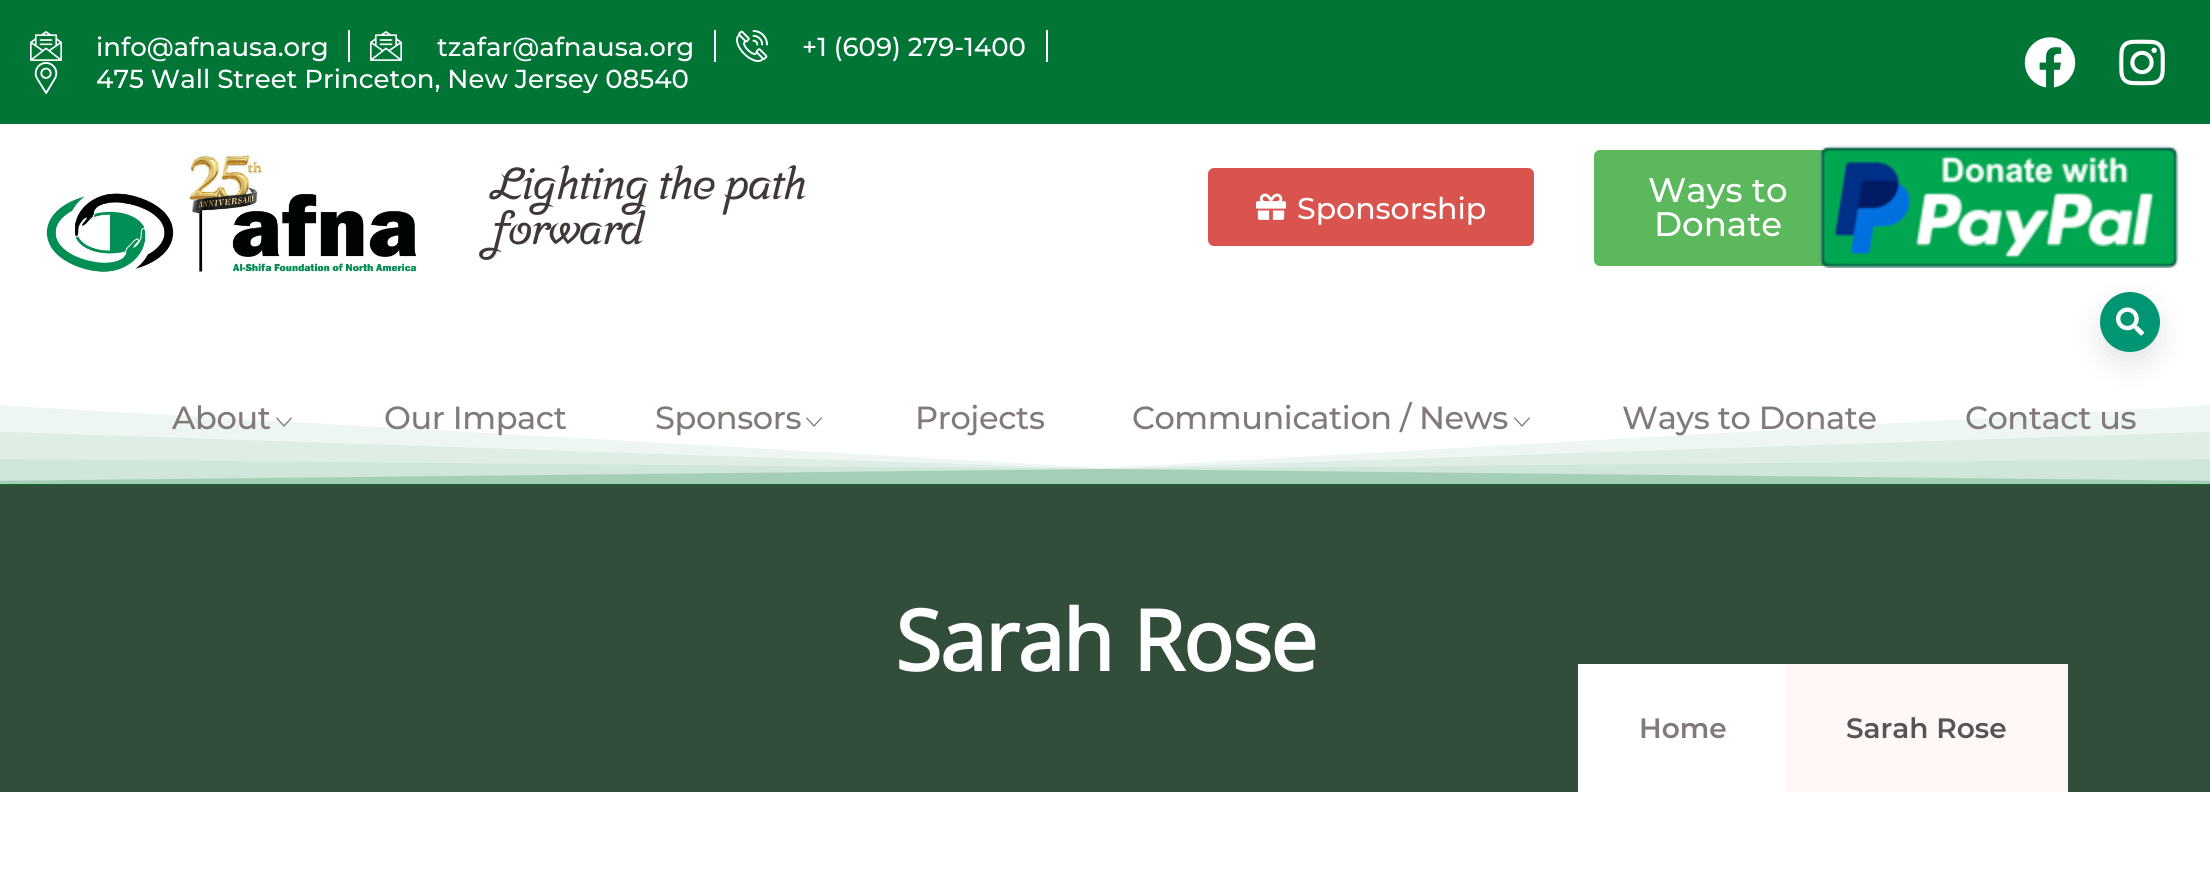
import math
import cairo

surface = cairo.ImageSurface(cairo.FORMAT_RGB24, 2210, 875)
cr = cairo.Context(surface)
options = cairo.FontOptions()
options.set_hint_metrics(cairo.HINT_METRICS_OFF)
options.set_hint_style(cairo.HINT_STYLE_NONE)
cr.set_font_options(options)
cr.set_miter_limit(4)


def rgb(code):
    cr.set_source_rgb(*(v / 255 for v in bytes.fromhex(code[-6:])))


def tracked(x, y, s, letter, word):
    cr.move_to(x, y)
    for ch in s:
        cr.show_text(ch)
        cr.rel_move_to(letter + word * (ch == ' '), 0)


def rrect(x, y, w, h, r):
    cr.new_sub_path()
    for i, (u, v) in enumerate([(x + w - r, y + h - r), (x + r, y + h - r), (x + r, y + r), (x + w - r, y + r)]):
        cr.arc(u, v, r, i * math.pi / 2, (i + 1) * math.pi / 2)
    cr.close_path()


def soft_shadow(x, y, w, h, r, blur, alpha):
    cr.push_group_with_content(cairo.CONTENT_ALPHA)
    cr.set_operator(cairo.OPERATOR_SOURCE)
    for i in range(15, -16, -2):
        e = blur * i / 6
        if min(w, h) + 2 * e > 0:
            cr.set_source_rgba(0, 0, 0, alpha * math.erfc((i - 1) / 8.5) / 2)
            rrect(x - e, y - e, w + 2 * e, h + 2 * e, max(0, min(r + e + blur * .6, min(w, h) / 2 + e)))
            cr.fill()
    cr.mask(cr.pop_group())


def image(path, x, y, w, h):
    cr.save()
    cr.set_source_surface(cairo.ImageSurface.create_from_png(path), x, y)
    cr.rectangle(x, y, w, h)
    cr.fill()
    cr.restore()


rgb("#ffffff")
cr.paint()
rgb("#007536")
cr.rectangle(0, 0, 2210, 124)
cr.fill()
image("img/1.png", 30, 31, 32, 30)
rgb("#ffffff")
cr.rectangle(348, 30, 2, 32)
cr.fill()
image("img/1.png", 370, 31, 32, 30)
cr.rectangle(714, 30, 2, 32)
cr.fill()
image("img/2.png", 736, 30, 32, 32)
cr.rectangle(1046, 30, 2, 32)
cr.fill()
image("img/3.png", 34, 62, 24, 32)
image("img/4.png", 2024, 37, 52, 51)
image("img/5.png", 2119, 39, 46, 47)
image("img/6.png", 46, 153, 371, 121)
rgb("#d9534f")
rrect(1208, 168, 326, 78, 6)
cr.fill()
image("img/7.png", 1256, 193, 30, 27)
rgb("#5cb85c")
rrect(1594, 150, 248, 116, 6)
cr.fill()
image("img/8.png", 1820, 145, 359, 123)
rgb("#324e3a")
cr.rectangle(0, 484, 2210, 308)
cr.fill()
cr.save()
cr.rectangle(0, 394, 2210, 92)
cr.clip()
cr.set_source_rgba(0, 0.459, 0.212, 0.07)
cr.new_path()
cr.move_to(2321, 488)
cr.line_to(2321, 399)
cr.line_to(1104, 468)
cr.line_to(-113, 399)
cr.line_to(-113, 488)
cr.close_path()
cr.fill()
cr.restore()
rgb("#000000")
soft_shadow(2100, 304, 60, 60, 30, 14, 0.1)
rgb("#009673")
cr.arc(2130, 322, 30, 0, 2 * math.pi)
cr.fill()
image("img/9.png", 2116, 307, 28, 29)
image("img/10.png", 276, 417, 16, 10)
image("img/11.png", 806, 417, 16, 10)
image("img/11.png", 1514, 417, 16, 10)
cr.save()
cr.rectangle(0, 394, 2210, 92)
cr.clip()
cr.set_source_rgba(0, 0.459, 0.212, 0.07)
cr.new_path()
cr.move_to(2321, 488)
cr.line_to(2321, 428)
cr.line_to(1104, 469)
cr.line_to(-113, 428)
cr.line_to(-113, 488)
cr.close_path()
cr.fill()
cr.new_path()
cr.move_to(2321, 488)
cr.line_to(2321, 458)
cr.line_to(1104, 469)
cr.line_to(-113, 458)
cr.line_to(-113, 488)
cr.close_path()
cr.fill()
cr.set_source_rgba(0, 0.459, 0.212, 0.21)
cr.new_path()
cr.move_to(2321, 488)
cr.line_to(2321, 482)
cr.line_to(1104, 469)
cr.line_to(-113, 482)
cr.line_to(-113, 488)
cr.close_path()
cr.fill()
cr.restore()
rgb("#ffffff")
cr.rectangle(1578, 664, 208, 128)
cr.fill()
rgb("#fff8f7")
cr.rectangle(1786, 664, 282, 128)
cr.fill()
cr.select_font_face("Montserrat Medium")
cr.set_font_size(26)
rgb("#ffffff")
for x, y, s in [
    (96, 56, "info@afnausa.org"),
    (437, 56, "tzafar@afnausa.org"),
    (802, 56, "+1 (609) 279-1400"),
    (96, 88, "475 Wall Street Princeton, New Jersey 08540"),
]:
    cr.move_to(x, y)
    cr.show_text(s)
cr.select_font_face("Srisakdi", cairo.FONT_SLANT_NORMAL, cairo.FONT_WEIGHT_BOLD)
cr.set_font_size(44.75)
rgb("#3f3836")
tracked(491, 199, "Lighting the path", -1.6, 0)
tracked(491, 244, "forward", -1.6, 0)
cr.select_font_face("Montserrat Medium")
cr.set_font_size(30)
rgb("#ffffff")
cr.move_to(1297, 219)
cr.show_text("Sponsorship")
cr.set_font_size(34)
cr.move_to(1648, 202)
cr.show_text("Ways to")
cr.move_to(1654, 236)
cr.show_text("Donate")
cr.set_font_size(32)
rgb("#817a78")
for x, y, s in [
    (172, 429, "About"),
    (384, 429, "Our Impact"),
    (655, 429, "Sponsors"),
    (915, 429, "Projects"),
    (1132, 429, "Communication / News"),
    (1622, 429, "Ways to Donate"),
    (1965, 429, "Contact us"),
]:
    tracked(x, y, s, -0.4, 0)
cr.select_font_face("Open Sans", cairo.FONT_SLANT_NORMAL, cairo.FONT_WEIGHT_BOLD)
cr.set_font_size(84)
rgb("#ffffff")
tracked(895, 671, "Sarah Rose", -1.6, 0)
cr.select_font_face("Montserrat SemiBold")
cr.set_font_size(28)
rgb("#817a78")
cr.move_to(1639, 738)
cr.show_text("Home")
rgb("#555555")
cr.move_to(1846, 738)
cr.show_text("Sarah Rose")
surface.write_to_png("page.png")
